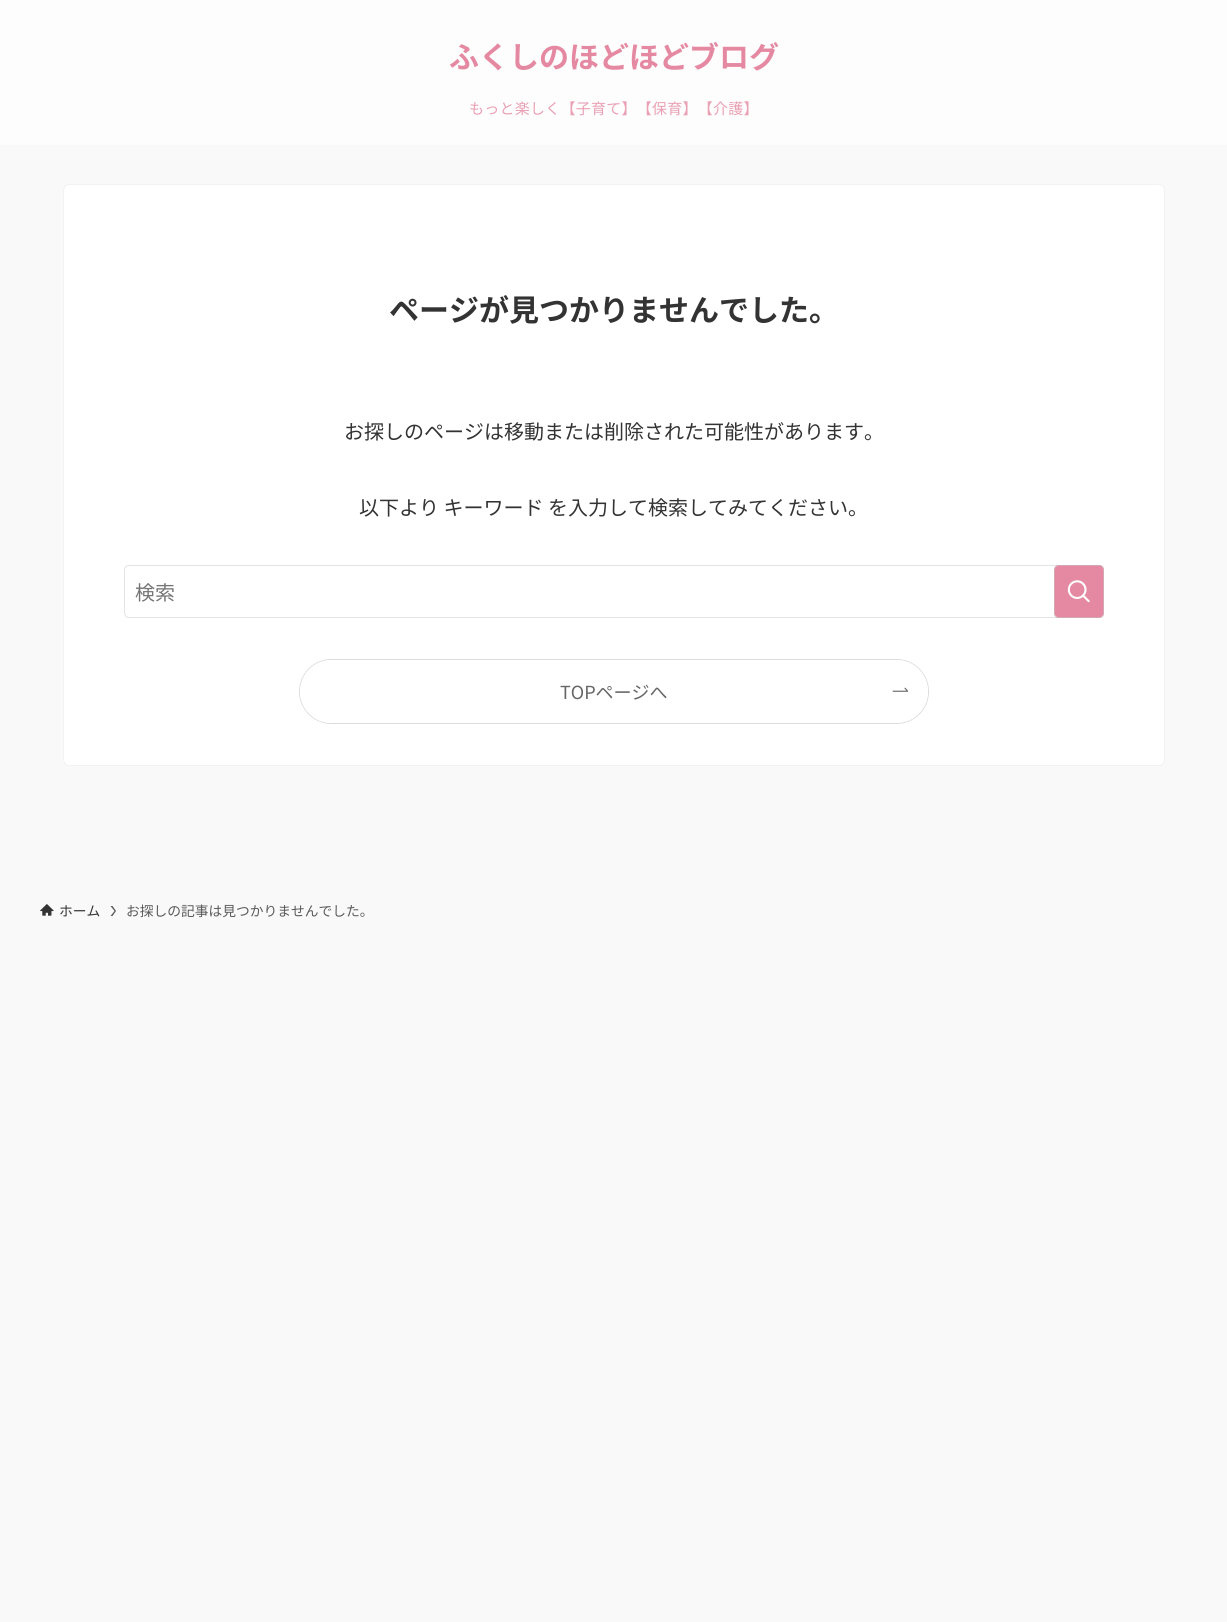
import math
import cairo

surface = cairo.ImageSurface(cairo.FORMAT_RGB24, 1227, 1622)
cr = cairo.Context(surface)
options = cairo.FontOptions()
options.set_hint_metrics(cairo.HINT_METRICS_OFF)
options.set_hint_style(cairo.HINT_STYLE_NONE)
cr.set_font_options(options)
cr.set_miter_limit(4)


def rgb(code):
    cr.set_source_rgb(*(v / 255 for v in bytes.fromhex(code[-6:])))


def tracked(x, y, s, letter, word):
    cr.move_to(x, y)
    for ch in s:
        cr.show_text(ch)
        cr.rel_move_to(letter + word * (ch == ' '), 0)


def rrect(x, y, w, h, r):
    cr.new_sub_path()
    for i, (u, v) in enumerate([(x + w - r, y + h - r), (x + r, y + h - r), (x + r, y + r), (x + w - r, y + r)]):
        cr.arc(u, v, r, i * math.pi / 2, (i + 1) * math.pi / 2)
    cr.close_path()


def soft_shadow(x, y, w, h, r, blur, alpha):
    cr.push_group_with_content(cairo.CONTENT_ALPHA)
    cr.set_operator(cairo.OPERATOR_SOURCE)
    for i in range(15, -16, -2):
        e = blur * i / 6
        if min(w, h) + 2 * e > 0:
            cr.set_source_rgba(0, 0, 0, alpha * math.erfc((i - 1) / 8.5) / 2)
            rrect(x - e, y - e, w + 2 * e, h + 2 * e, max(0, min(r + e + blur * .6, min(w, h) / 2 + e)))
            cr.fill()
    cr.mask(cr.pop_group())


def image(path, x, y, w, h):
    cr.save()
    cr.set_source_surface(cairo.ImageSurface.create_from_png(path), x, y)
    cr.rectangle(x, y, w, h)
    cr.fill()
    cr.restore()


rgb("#f9f9f9")
cr.paint()
rgb("#fdfdfd")
cr.rectangle(0, 0, 1227, 145)
cr.fill()
rgb("#000000")
soft_shadow(64, 185, 1100, 580, 5, 0.5, 0.12)
rgb("#ffffff")
rrect(64, 185, 1100, 580, 5)
cr.fill()
rrect(124.5, 565.5, 979, 52, 4.5)
rgb("#e3e3e3")
cr.set_line_width(1)
cr.stroke()
rgb("#e589a2")
rrect(1054, 565, 50, 53, 5)
cr.fill()
rrect(1054.5, 565.5, 49, 52, 4.5)
cr.set_source_rgba(0.78, 0.78, 0.78, 0.5)
cr.stroke()
image("img/1.png", 1067, 580, 23, 23)
rrect(299.5, 659.5, 629, 64, 32)
rgb("#dcdcdc")
cr.stroke()
rgb("#ffffff")
rrect(300, 660, 628, 63, 31.5)
cr.fill()
image("img/2.png", 892, 687, 17, 5)
image("img/3.png", 40, 904, 14, 12)
rgb("#5b5b5b")
cr.new_path()
cr.move_to(112.5, 906)
cr.line_to(110.5, 906)
cr.line_to(114.5, 911)
cr.line_to(110.5, 916)
cr.line_to(112.5, 916)
cr.line_to(116, 911)
cr.close_path()
cr.fill()
cr.select_font_face("Noto Sans JP", cairo.FONT_SLANT_NORMAL, cairo.FONT_WEIGHT_BOLD)
cr.set_font_size(30)
rgb("#e589a2")
cr.move_to(449, 68)
cr.show_text("ふくしのほどほどブログ")
cr.select_font_face("Noto Sans JP")
cr.set_font_size(15)
rgb("#eaa0b4")
tracked(469, 114, "もっと楽しく【子育て】【保育】【介護】", 0.25, 0)
cr.select_font_face("Noto Sans JP", cairo.FONT_SLANT_NORMAL, cairo.FONT_WEIGHT_BOLD)
cr.set_font_size(30)
rgb("#333333")
cr.move_to(389, 321)
cr.show_text("ページが見つかりませんでした。")
cr.select_font_face("Noto Sans JP")
cr.set_font_size(20)
cr.move_to(344, 439)
cr.show_text("お探しのページは移動または削除された可能性があります。")
cr.move_to(359, 515)
cr.show_text("以下より キーワード を入力して検索してみてください。")
rgb("#757575")
cr.move_to(135, 600)
cr.show_text("検索")
cr.set_font_size(18)
rgb("#666666")
cr.move_to(560, 699)
cr.show_text("TOPページへ")
cr.set_font_size(13.75)
rgb("#333333")
cr.move_to(59, 916)
cr.show_text("ホーム")
rgb("#5b5b5b")
cr.move_to(126, 916)
cr.show_text("お探しの記事は見つかりませんでした。")
surface.write_to_png("page.png")
